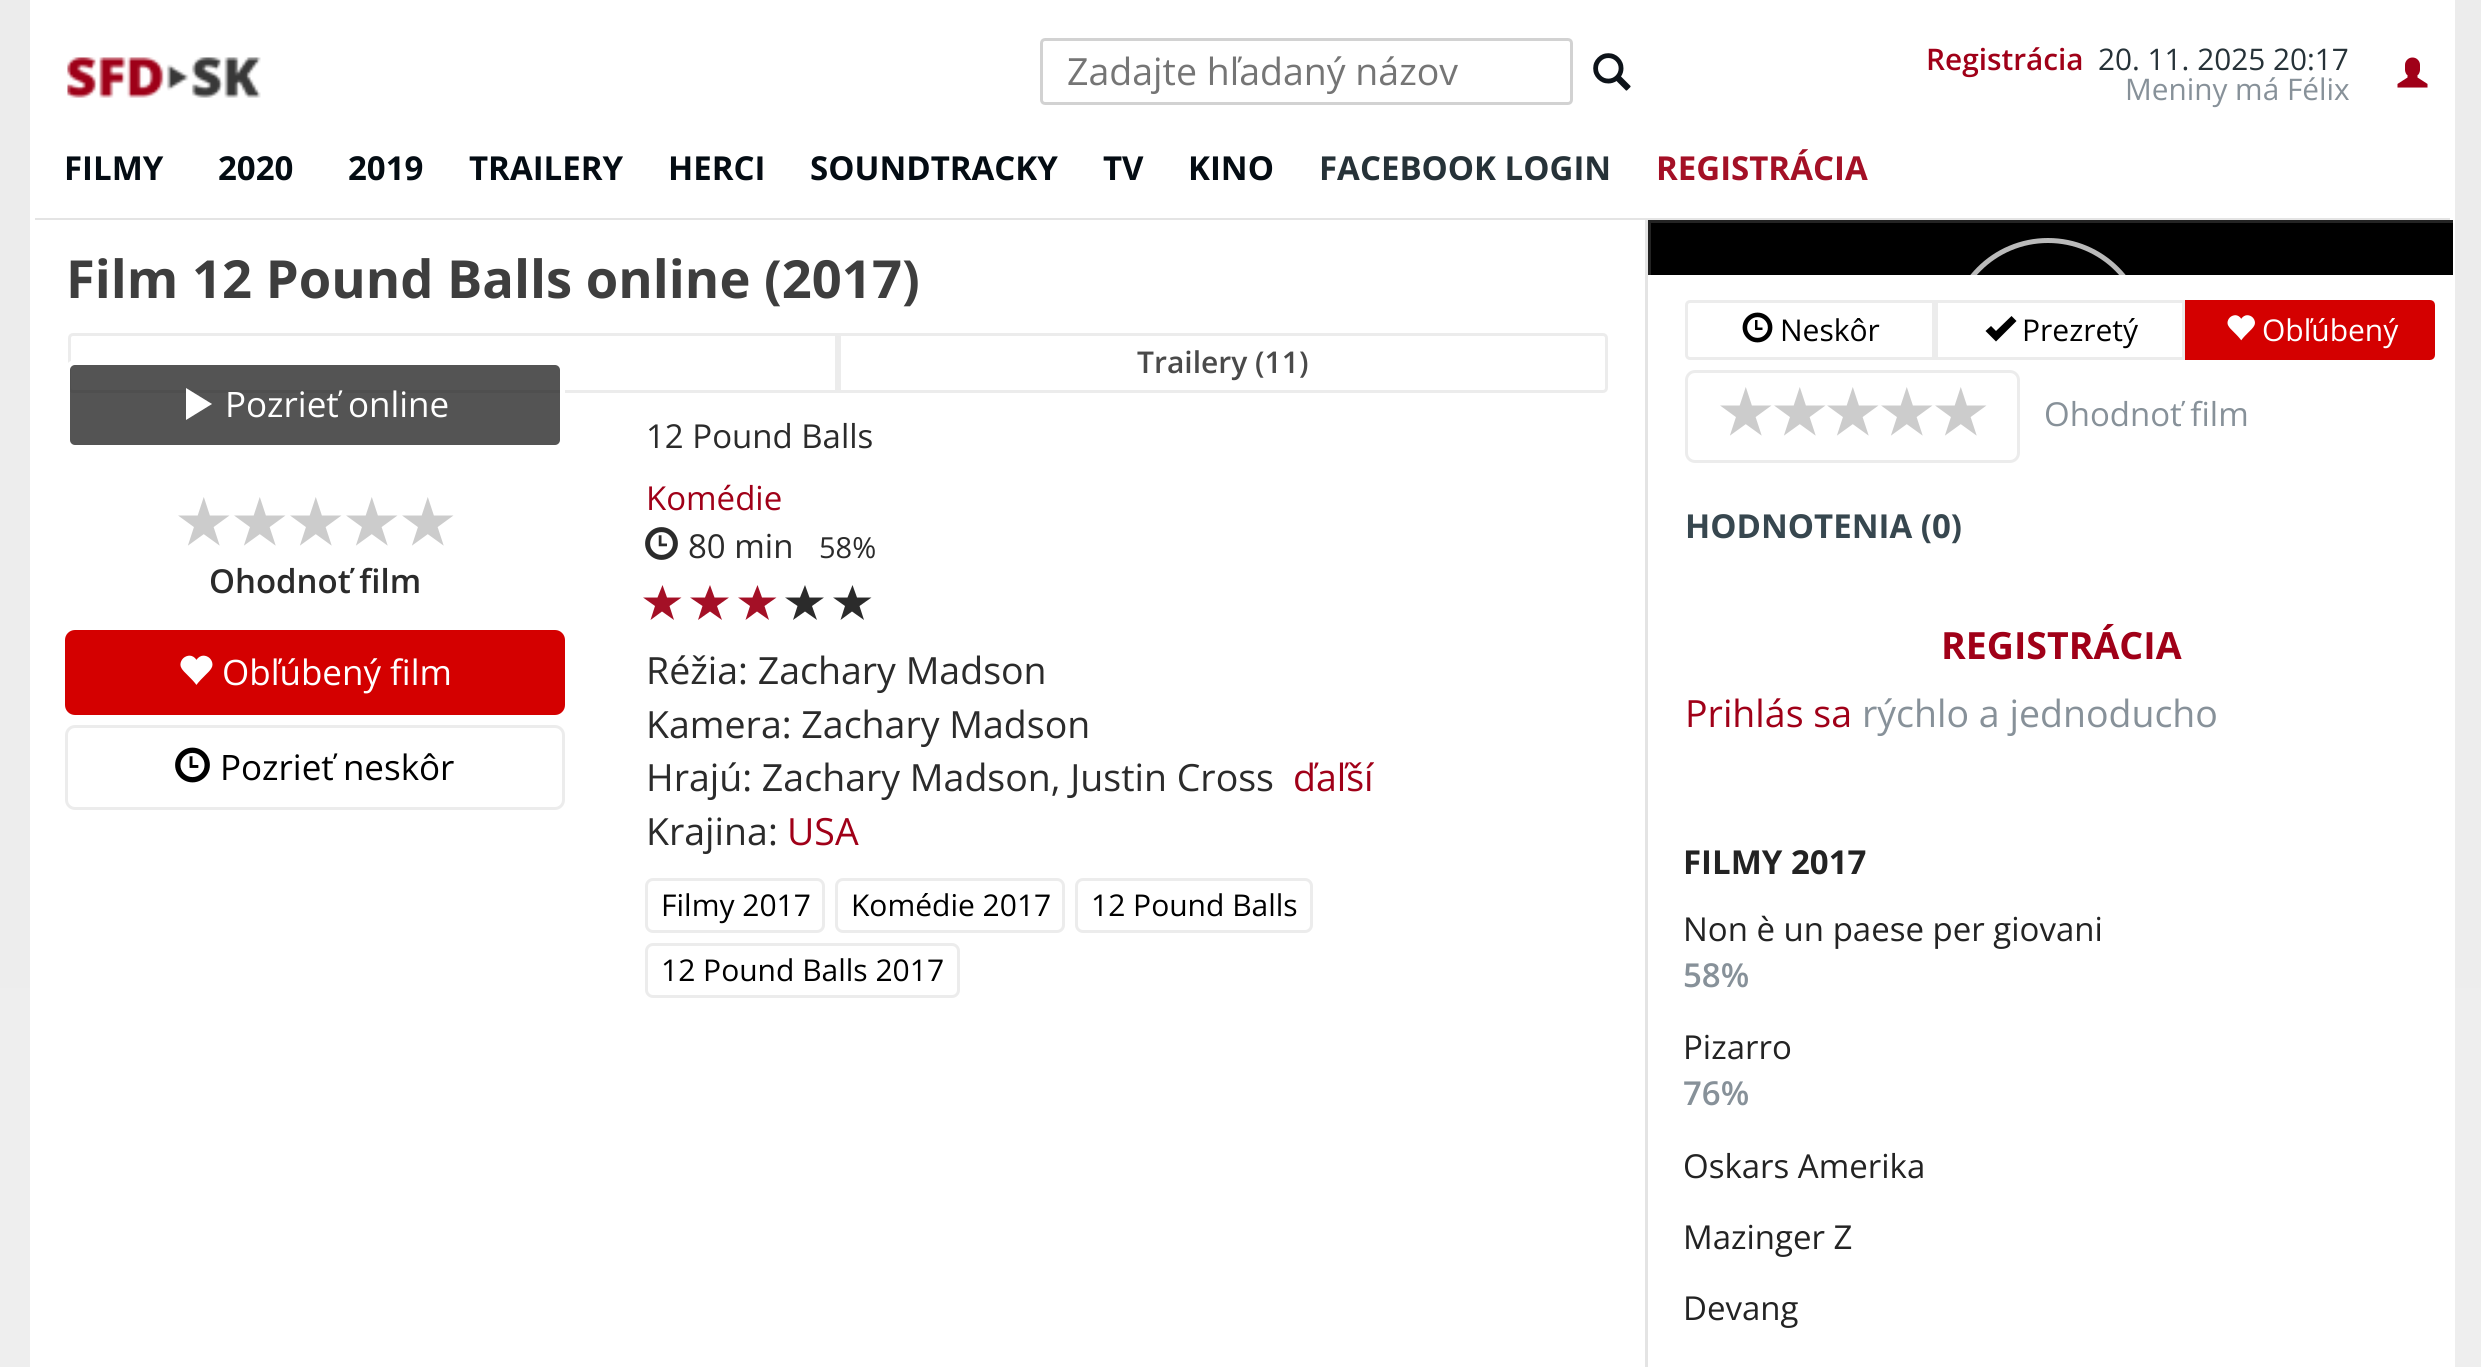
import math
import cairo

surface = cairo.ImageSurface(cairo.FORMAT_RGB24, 2481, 1367)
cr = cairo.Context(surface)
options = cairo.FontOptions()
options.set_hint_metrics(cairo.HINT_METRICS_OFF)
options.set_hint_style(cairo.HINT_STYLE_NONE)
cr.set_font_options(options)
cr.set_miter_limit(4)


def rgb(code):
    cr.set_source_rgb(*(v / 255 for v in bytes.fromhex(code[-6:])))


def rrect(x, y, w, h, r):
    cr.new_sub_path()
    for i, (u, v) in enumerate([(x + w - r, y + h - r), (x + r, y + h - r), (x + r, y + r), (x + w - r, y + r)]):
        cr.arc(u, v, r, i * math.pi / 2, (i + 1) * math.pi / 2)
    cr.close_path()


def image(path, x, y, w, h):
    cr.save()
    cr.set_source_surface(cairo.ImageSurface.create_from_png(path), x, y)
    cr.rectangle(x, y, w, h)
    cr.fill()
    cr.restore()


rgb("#ffffff")
cr.paint()
gradient = cairo.LinearGradient(1241, 0, 1241, 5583)
gradient.add_color_stop_rgba(0, 0.925, 0.925, 0.925, 1)
gradient.add_color_stop_rgba(1, 0.961, 0.961, 0.961, 1)
cr.set_source(gradient)
cr.rectangle(0, 0, 2481, 1367)
cr.fill()
rgb("#ffffff")
cr.rectangle(30, 0, 2425, 1367)
cr.fill()
image("img/1.png", 67, 57, 194, 41)
rrect(1041.5, 39.5, 530, 64, 3.5)
rgb("#d2d2d2")
cr.set_line_width(3)
cr.stroke()
image("img/2.png", 1593, 53, 38, 38)
image("img/3.png", 2397, 57, 31, 31)
rgb("#e4e4e4")
cr.rectangle(35, 218, 2415, 2)
cr.fill()
cr.new_path()
cr.move_to(73, 334.5)
cr.line_to(836.5, 334.5)
cr.line_to(836.5, 391.5)
cr.line_to(73, 391.5)
cr.curve_to(71, 391.5, 69.5, 390, 69.5, 388)
cr.line_to(69.5, 338)
cr.curve_to(69.5, 336, 71, 334.5, 73, 334.5)
cr.close_path()
rgb("#ececec")
cr.stroke()
cr.new_path()
cr.move_to(839.5, 334.5)
cr.line_to(1603, 334.5)
cr.curve_to(1605, 334.5, 1606.5, 336, 1606.5, 338)
cr.line_to(1606.5, 388)
cr.curve_to(1606.5, 390, 1605, 391.5, 1603, 391.5)
cr.line_to(839.5, 391.5)
cr.close_path()
cr.stroke()
cr.set_source_rgba(0.098, 0.098, 0.098, 0.74)
rrect(67.5, 362.5, 495, 85, 7.5)
cr.fill_preserve()
rgb("#ffffff")
cr.set_line_width(5)
cr.stroke()
cr.new_path()
cr.move_to(186, 420)
cr.line_to(212, 404)
cr.line_to(186, 388)
cr.close_path()
cr.fill()
rgb("#d40000")
rrect(66.5, 631.5, 497, 82, 8.5)
cr.fill_preserve()
cr.set_line_width(3)
cr.stroke()
image("img/4.png", 180, 655, 33, 30)
rrect(66.5, 726.5, 497, 82, 8.5)
rgb("#ececec")
cr.stroke()
image("img/5.png", 175, 747, 35, 36)
image("img/6.png", 645, 527, 33, 33)
rgb("#a41026")
cr.new_path()
cr.move_to(643, 597.5)
cr.line_to(657.5, 597.5)
cr.line_to(662.5, 585)
cr.line_to(667, 597.5)
cr.line_to(681.5, 597.5)
cr.line_to(669.5, 606)
cr.line_to(674, 620)
cr.line_to(662, 611.5)
cr.line_to(650.5, 620)
cr.line_to(655, 606)
cr.close_path()
cr.move_to(650, 620.5)
cr.line_to(650, 620.5)
cr.close_path()
cr.fill()
cr.new_path()
cr.move_to(690, 597.5)
cr.line_to(705, 597.5)
cr.line_to(710, 585)
cr.line_to(714.5, 597.5)
cr.line_to(729, 597.5)
cr.line_to(717, 606)
cr.line_to(722, 620)
cr.line_to(710, 611.5)
cr.line_to(698, 620)
cr.line_to(702.5, 606)
cr.close_path()
cr.move_to(698, 620.5)
cr.line_to(698, 620.5)
cr.close_path()
cr.fill()
cr.new_path()
cr.move_to(738, 597.5)
cr.line_to(752.5, 597.5)
cr.line_to(757.5, 585)
cr.line_to(762, 597.5)
cr.line_to(776.5, 597.5)
cr.line_to(764.5, 606)
cr.line_to(769, 620)
cr.line_to(757, 611.5)
cr.line_to(745.5, 620)
cr.line_to(750, 606)
cr.close_path()
cr.move_to(745, 620.5)
cr.line_to(745, 620.5)
cr.close_path()
cr.fill()
rgb("#2b2b2b")
cr.new_path()
cr.move_to(785, 597.5)
cr.line_to(800, 597.5)
cr.line_to(805, 585)
cr.line_to(809.5, 597.5)
cr.line_to(824, 597.5)
cr.line_to(812, 606)
cr.line_to(817, 620)
cr.line_to(805, 611.5)
cr.line_to(793, 620)
cr.line_to(797.5, 606)
cr.close_path()
cr.move_to(793, 620.5)
cr.line_to(793, 620.5)
cr.close_path()
cr.fill()
cr.new_path()
cr.move_to(833, 597.5)
cr.line_to(847.5, 597.5)
cr.line_to(852.5, 585)
cr.line_to(857, 597.5)
cr.line_to(871.5, 597.5)
cr.line_to(859.5, 606)
cr.line_to(864, 620)
cr.line_to(852, 611.5)
cr.line_to(840.5, 620)
cr.line_to(845, 606)
cr.close_path()
cr.move_to(840, 620.5)
cr.line_to(840, 620.5)
cr.close_path()
cr.fill()
rrect(646.5, 879.5, 177, 52, 6.5)
rgb("#ececec")
cr.stroke()
rrect(836.5, 879.5, 227, 52, 6.5)
cr.stroke()
rrect(1076.5, 879.5, 235, 52, 6.5)
cr.stroke()
rrect(646.5, 944.5, 312, 52, 6.5)
cr.stroke()
for x, y, w, h, color in [
    (1645, 220, 3, 1147, "#e4e4e4"),
    (1651, 223, 802, 52, "#000000"),
    (1648, 220, 805, 3, "#232323"),
    (1648, 220, 3, 55, "#232323"),
]:
    rgb(color)
    cr.rectangle(x, y, w, h)
    cr.fill()
cr.save()
cr.rectangle(1650, 223, 803, 52)
cr.clip()
cr.arc(2048, 338, 97.5, 0, 2 * math.pi)
rgb("#bababa")
cr.set_line_width(5)
cr.stroke()
cr.restore()
cr.new_path()
cr.move_to(1690, 301.5)
cr.line_to(1933.5, 301.5)
cr.line_to(1933.5, 358.5)
cr.line_to(1690, 358.5)
cr.curve_to(1688, 358.5, 1686.5, 357, 1686.5, 355)
cr.line_to(1686.5, 305)
cr.curve_to(1686.5, 303, 1688, 301.5, 1690, 301.5)
cr.close_path()
rgb("#ececec")
cr.stroke()
image("img/7.png", 1742, 312, 31, 31)
cr.rectangle(1936.5, 301.5, 247, 57)
cr.stroke()
rgb("#000000")
cr.new_path()
cr.move_to(1985.5, 331)
cr.line_to(1996, 341.5)
cr.line_to(2016.5, 321)
cr.line_to(2011.5, 316)
cr.line_to(1996, 331)
cr.line_to(1991, 326)
cr.close_path()
cr.fill()
rgb("#d40000")
cr.new_path()
cr.move_to(2186.5, 301.5)
cr.line_to(2430, 301.5)
cr.curve_to(2432, 301.5, 2433.5, 303, 2433.5, 305)
cr.line_to(2433.5, 355)
cr.curve_to(2433.5, 357, 2432, 358.5, 2430, 358.5)
cr.line_to(2186.5, 358.5)
cr.close_path()
cr.fill_preserve()
cr.stroke()
image("img/8.png", 2227, 315, 28, 26)
rrect(1686.5, 371.5, 332, 90, 8.5)
rgb("#ececec")
cr.stroke()
cr.select_font_face("Open Sans")
cr.set_font_size(37.5)
rgb("#757575")
cr.move_to(1067, 85)
cr.show_text("Zadajte hľadaný názov")
cr.select_font_face("Open Sans SemiBold")
cr.set_font_size(29.75)
rgb("#a00018")
cr.move_to(1926, 70)
cr.show_text("Registrácia")
cr.select_font_face("Open Sans")
rgb("#263238")
cr.move_to(2098, 70)
cr.show_text("20. 11. 2025 20:17")
rgb("#879199")
cr.move_to(2125, 100)
cr.show_text("Meniny má Félix")
cr.select_font_face("Open Sans", cairo.FONT_SLANT_NORMAL, cairo.FONT_WEIGHT_BOLD)
cr.set_font_size(33)
rgb("#040c13")
for x, y, s in [
    (64, 180, "FILMY"),
    (218, 180, "2020"),
    (348, 180, "2019"),
    (469, 180, "TRAILERY"),
    (668, 180, "HERCI"),
    (810, 180, "SOUNDTRACKY"),
    (1103, 180, "TV"),
    (1188, 180, "KINO"),
]:
    cr.move_to(x, y)
    cr.show_text(s)
rgb("#263238")
cr.move_to(1319, 180)
cr.show_text("FACEBOOK LOGIN")
rgb("#a41026")
cr.move_to(1656, 180)
cr.show_text("REGISTRÁCIA")
cr.set_font_size(52.5)
rgb("#3e3e3e")
cr.move_to(66, 298)
cr.show_text("Film 12 Pound Balls online (2017)")
cr.select_font_face("Open Sans SemiBold")
cr.set_font_size(30)
rgb("#4a4a4a")
cr.move_to(1137, 373)
cr.show_text("Trailery (11)")
cr.select_font_face("Open Sans")
cr.set_font_size(35)
rgb("#ffffff")
cr.move_to(225, 417)
cr.show_text("Pozrieť online")
cr.select_font_face("DejaVu Sans", cairo.FONT_SLANT_NORMAL, cairo.FONT_WEIGHT_BOLD)
cr.set_font_size(60)
rgb("#cccccc")
for x, y, s in [
    (176, 544, "★"),
    (232, 544, "★"),
    (288, 544, "★"),
    (344, 544, "★"),
    (400, 544, "★"),
]:
    cr.move_to(x, y)
    cr.show_text(s)
cr.select_font_face("Open Sans SemiBold")
cr.set_font_size(33)
rgb("#2b2b2b")
cr.move_to(209, 593)
cr.show_text("Ohodnoť film")
cr.select_font_face("Open Sans")
cr.set_font_size(35)
rgb("#ffffff")
cr.move_to(222, 685)
cr.show_text("Obľúbený film")
rgb("#000000")
cr.move_to(220, 780)
cr.show_text("Pozrieť neskôr")
cr.set_font_size(33)
rgb("#2b2b2b")
cr.move_to(646, 448)
cr.show_text("12 Pound Balls")
rgb("#a00018")
cr.move_to(646, 510)
cr.show_text("Komédie")
rgb("#2b2b2b")
cr.move_to(688, 558)
cr.show_text("80 min")
cr.set_font_size(29)
cr.move_to(819, 558)
cr.show_text("58%")
cr.set_font_size(37.5)
for x, y, s in [
    (646, 684, "Réžia: Zachary Madson"),
    (646, 738, "Kamera: Zachary Madson"),
    (646, 791, "Hrajú: Zachary Madson, Justin Cross"),
]:
    cr.move_to(x, y)
    cr.show_text(s)
rgb("#a00018")
cr.move_to(1293, 791)
cr.show_text("ďaľší")
rgb("#2b2b2b")
cr.move_to(646, 845)
cr.show_text("Krajina:")
rgb("#a00018")
cr.move_to(787, 845)
cr.show_text("USA")
cr.set_font_size(30)
rgb("#000000")
for x, y, s in [
    (661, 916, "Filmy 2017"),
    (851, 916, "Komédie 2017"),
    (1091, 916, "12 Pound Balls"),
    (661, 981, "12 Pound Balls 2017"),
    (1780, 341, "Neskôr"),
    (2022, 341, "Prezretý"),
]:
    cr.move_to(x, y)
    cr.show_text(s)
rgb("#ffffff")
cr.move_to(2262, 341)
cr.show_text("Obľúbený")
cr.select_font_face("DejaVu Sans", cairo.FONT_SLANT_NORMAL, cairo.FONT_WEIGHT_BOLD)
cr.set_font_size(60)
rgb("#cccccc")
for x, y, s in [
    (1718, 434, "★"),
    (1772, 434, "★"),
    (1825, 434, "★"),
    (1879, 434, "★"),
    (1933, 434, "★"),
]:
    cr.move_to(x, y)
    cr.show_text(s)
cr.select_font_face("Open Sans")
cr.set_font_size(33)
rgb("#879199")
cr.move_to(2044, 426)
cr.show_text("Ohodnoť film")
cr.select_font_face("Open Sans", cairo.FONT_SLANT_NORMAL, cairo.FONT_WEIGHT_BOLD)
rgb("#37474f")
cr.move_to(1685, 538)
cr.show_text("HODNOTENIA (0)")
cr.set_font_size(37.5)
rgb("#a00018")
cr.move_to(1941, 659)
cr.show_text("REGISTRÁCIA")
cr.select_font_face("Open Sans")
cr.move_to(1685, 727)
cr.show_text("Prihlás sa")
rgb("#879199")
cr.move_to(1862, 727)
cr.show_text("rýchlo a jednoducho")
cr.select_font_face("Open Sans", cairo.FONT_SLANT_NORMAL, cairo.FONT_WEIGHT_BOLD)
cr.set_font_size(33)
rgb("#232323")
cr.move_to(1683, 874)
cr.show_text("FILMY 2017")
cr.select_font_face("Open Sans")
cr.move_to(1683, 941)
cr.show_text("Non è un paese per giovani")
cr.select_font_face("Open Sans SemiBold")
rgb("#879199")
cr.move_to(1683, 987)
cr.show_text("58%")
cr.select_font_face("Open Sans")
rgb("#232323")
cr.move_to(1683, 1059)
cr.show_text("Pizarro")
cr.select_font_face("Open Sans SemiBold")
rgb("#879199")
cr.move_to(1683, 1105)
cr.show_text("76%")
cr.select_font_face("Open Sans")
rgb("#232323")
for x, y, s in [
    (1683, 1178, "Oskars Amerika"),
    (1683, 1249, "Mazinger Z"),
    (1683, 1320, "Devang"),
]:
    cr.move_to(x, y)
    cr.show_text(s)
surface.write_to_png("page.png")
